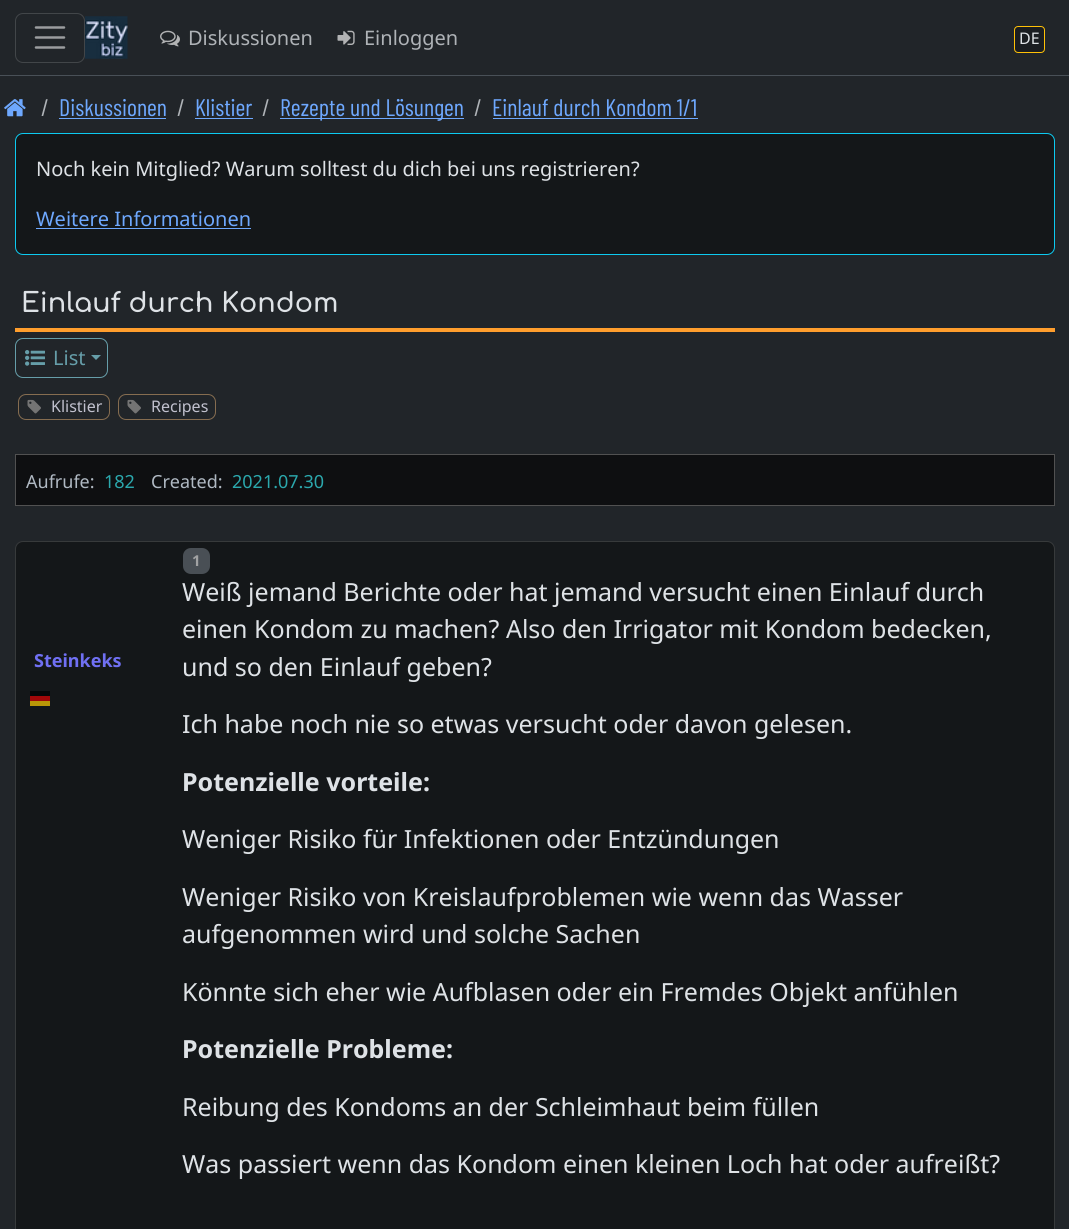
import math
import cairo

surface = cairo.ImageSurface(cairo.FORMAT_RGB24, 1069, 1229)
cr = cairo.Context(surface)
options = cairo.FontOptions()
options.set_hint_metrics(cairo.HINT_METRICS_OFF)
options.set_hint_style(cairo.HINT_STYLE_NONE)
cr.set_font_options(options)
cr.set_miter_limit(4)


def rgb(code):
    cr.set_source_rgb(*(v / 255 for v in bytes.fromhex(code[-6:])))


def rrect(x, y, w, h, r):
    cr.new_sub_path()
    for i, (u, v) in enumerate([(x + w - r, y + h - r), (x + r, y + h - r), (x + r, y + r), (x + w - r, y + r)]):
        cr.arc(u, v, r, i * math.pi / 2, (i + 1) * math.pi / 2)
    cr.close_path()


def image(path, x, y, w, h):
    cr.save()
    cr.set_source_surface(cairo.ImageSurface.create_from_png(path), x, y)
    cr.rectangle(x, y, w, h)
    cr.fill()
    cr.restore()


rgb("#212529")
cr.paint()
rgb("#495057")
cr.rectangle(0, 75, 1069, 1)
cr.fill()
rrect(15.5, 13.5, 69, 49, 7.5)
rgb("#424649")
cr.set_line_width(1)
cr.stroke()
cr.new_path()
cr.move_to(36, 27.5)
cr.line_to(64, 27.5)
cr.move_to(36, 37.5)
cr.line_to(64, 37.5)
cr.move_to(36, 47.5)
cr.line_to(64, 47.5)
rgb("#9b9d9f")
cr.set_line_width(2.5)
cr.set_line_cap(cairo.LINE_CAP_ROUND)
cr.stroke()
image("img/1.png", 85, 16, 43, 43)
image("img/2.png", 160, 30, 20, 17)
image("img/3.png", 337, 30, 18, 15)
rgb("#1a1d21")
rrect(1014.5, 26.5, 30, 26, 3.5)
cr.fill_preserve()
rgb("#ffc107")
cr.set_line_width(1)
cr.set_line_cap(cairo.LINE_CAP_BUTT)
cr.stroke()
image("img/4.png", 4, 99, 22, 18)
for x, y, w, h, color in [
    (59, 118, 107, 1, "#6ea8fe"),
    (195, 118, 58, 1, "#6ea8fe"),
    (280, 118, 184, 1, "#6ea8fe"),
    (493, 118, 205, 1, "#6ea8fe"),
]:
    rgb(color)
    cr.rectangle(x, y, w, h)
    cr.fill()
rgb("#141719")
rrect(15.5, 133.5, 1039, 121, 7.5)
cr.fill_preserve()
rgb("#0dcaf0")
cr.stroke()
rgb("#6ea8fe")
cr.rectangle(36, 228, 215, 1)
cr.fill()
rgb("#ff9e2d")
cr.rectangle(15, 328, 1040, 4)
cr.fill()
rrect(15.5, 338.5, 92, 39, 7.5)
rgb("#669ea9")
cr.stroke()
image("img/5.png", 25, 350, 20, 16)
cr.new_path()
cr.move_to(91, 355)
cr.line_to(101, 355)
cr.line_to(96, 360)
cr.close_path()
cr.fill()
rrect(18.5, 394.5, 91, 25, 7.5)
rgb("#866d50")
cr.stroke()
image("img/6.png", 27, 399, 14, 15)
rrect(118.5, 394.5, 97, 25, 7.5)
cr.stroke()
image("img/6.png", 127, 399, 14, 15)
rgb("#0e0f11")
cr.rectangle(15.5, 454.5, 1039, 51)
cr.fill_preserve()
rgb("#515151")
cr.stroke()
rgb("#141719")
rrect(15, 541, 1040, 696, 8)
cr.fill()
rrect(15.5, 541.5, 1039, 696, 7.5)
cr.set_source_rgba(1, 1, 1, 0.15)
cr.stroke()
for x, y, w, h, color in [
    (30, 701, 20, 5, "#b99708"),
    (30, 691, 20, 5, "#060708"),
    (30, 696, 20, 5, "#a10708"),
]:
    rgb(color)
    cr.rectangle(x, y, w, h)
    cr.fill()
rgb("#494f55")
rrect(183, 548, 27, 26, 8)
cr.fill()
cr.select_font_face("Noto Sans")
cr.set_font_size(20)
rgb("#afb3b7")
cr.move_to(188, 45)
cr.show_text("Diskussionen")
cr.move_to(364, 45)
cr.show_text("Einloggen")
cr.set_font_size(16)
rgb("#dee2e6")
cr.move_to(1019, 44)
cr.show_text("DE")
cr.select_font_face("Barlow Condensed")
cr.set_font_size(24)
rgb("#afb3b7")
cr.move_to(41, 116)
cr.show_text("/")
rgb("#6ea8fe")
cr.move_to(59, 116)
cr.show_text("Diskussionen")
rgb("#afb3b7")
cr.move_to(177, 116)
cr.show_text("/")
rgb("#6ea8fe")
cr.move_to(195, 116)
cr.show_text("Klistier")
rgb("#afb3b7")
cr.move_to(262, 116)
cr.show_text("/")
rgb("#6ea8fe")
cr.move_to(280, 116)
cr.show_text("Rezepte und Lösungen")
rgb("#afb3b7")
cr.move_to(474, 116)
cr.show_text("/")
rgb("#6ea8fe")
cr.move_to(492, 116)
cr.show_text("Einlauf durch Kondom 1/1")
cr.select_font_face("Noto Sans")
cr.set_font_size(20)
rgb("#dee2e6")
cr.move_to(36, 176)
cr.show_text("Noch kein Mitglied? Warum solltest du dich bei uns registrieren?")
rgb("#6ea8fe")
cr.move_to(36, 226)
cr.show_text("Weitere Informationen")
cr.select_font_face("Comfortaa SemiBold")
cr.set_font_size(27)
rgb("#dee2e6")
cr.move_to(21, 312)
cr.show_text("Einlauf durch Kondom")
cr.select_font_face("Noto Sans")
cr.set_font_size(20)
rgb("#669ea9")
cr.move_to(53, 365)
cr.show_text("List")
cr.set_font_size(16)
rgb("#c1c1ce")
cr.move_to(51, 412)
cr.show_text("Klistier")
cr.move_to(151, 412)
cr.show_text("Recipes")
cr.set_font_size(18)
rgb("#b0b9c3")
cr.move_to(26, 488)
cr.show_text("Aufrufe:")
rgb("#2ba8ad")
cr.move_to(104, 488)
cr.show_text("182")
rgb("#b0b9c3")
cr.move_to(151, 488)
cr.show_text("Created:")
rgb("#2ba8ad")
cr.move_to(232, 488)
cr.show_text("2021.07.30")
cr.select_font_face("Noto Sans", cairo.FONT_SLANT_NORMAL, cairo.FONT_WEIGHT_BOLD)
rgb("#7070f3")
cr.move_to(34, 667)
cr.show_text("Steinkeks")
cr.set_font_size(15)
rgb("#a1a2a3")
cr.move_to(192, 566)
cr.show_text("1")
cr.select_font_face("Noto Sans")
cr.set_font_size(25)
rgb("#dee2e6")
for x, y, s in [
    (182, 601, "Weiß jemand Berichte oder hat jemand versucht einen Einlauf durch"),
    (182, 638, "einen Kondom zu machen? Also den Irrigator mit Kondom bedecken,"),
    (182, 676, "und so den Einlauf geben?"),
    (182, 733, "Ich habe noch nie so etwas versucht oder davon gelesen."),
]:
    cr.move_to(x, y)
    cr.show_text(s)
cr.select_font_face("Noto Sans", cairo.FONT_SLANT_NORMAL, cairo.FONT_WEIGHT_BOLD)
cr.move_to(182, 791)
cr.show_text("Potenzielle vorteile:")
cr.select_font_face("Noto Sans")
for x, y, s in [
    (182, 848, "Weniger Risiko für Infektionen oder Entzündungen"),
    (182, 906, "Weniger Risiko von Kreislaufproblemen wie wenn das Wasser"),
    (182, 943, "aufgenommen wird und solche Sachen"),
    (182, 1001, "Könnte sich eher wie Aufblasen oder ein Fremdes Objekt anfühlen"),
]:
    cr.move_to(x, y)
    cr.show_text(s)
cr.select_font_face("Noto Sans", cairo.FONT_SLANT_NORMAL, cairo.FONT_WEIGHT_BOLD)
cr.move_to(182, 1058)
cr.show_text("Potenzielle Probleme:")
cr.select_font_face("Noto Sans")
cr.move_to(182, 1116)
cr.show_text("Reibung des Kondoms an der Schleimhaut beim füllen")
cr.move_to(182, 1173)
cr.show_text("Was passiert wenn das Kondom einen kleinen Loch hat oder aufreißt?")
surface.write_to_png("page.png")
